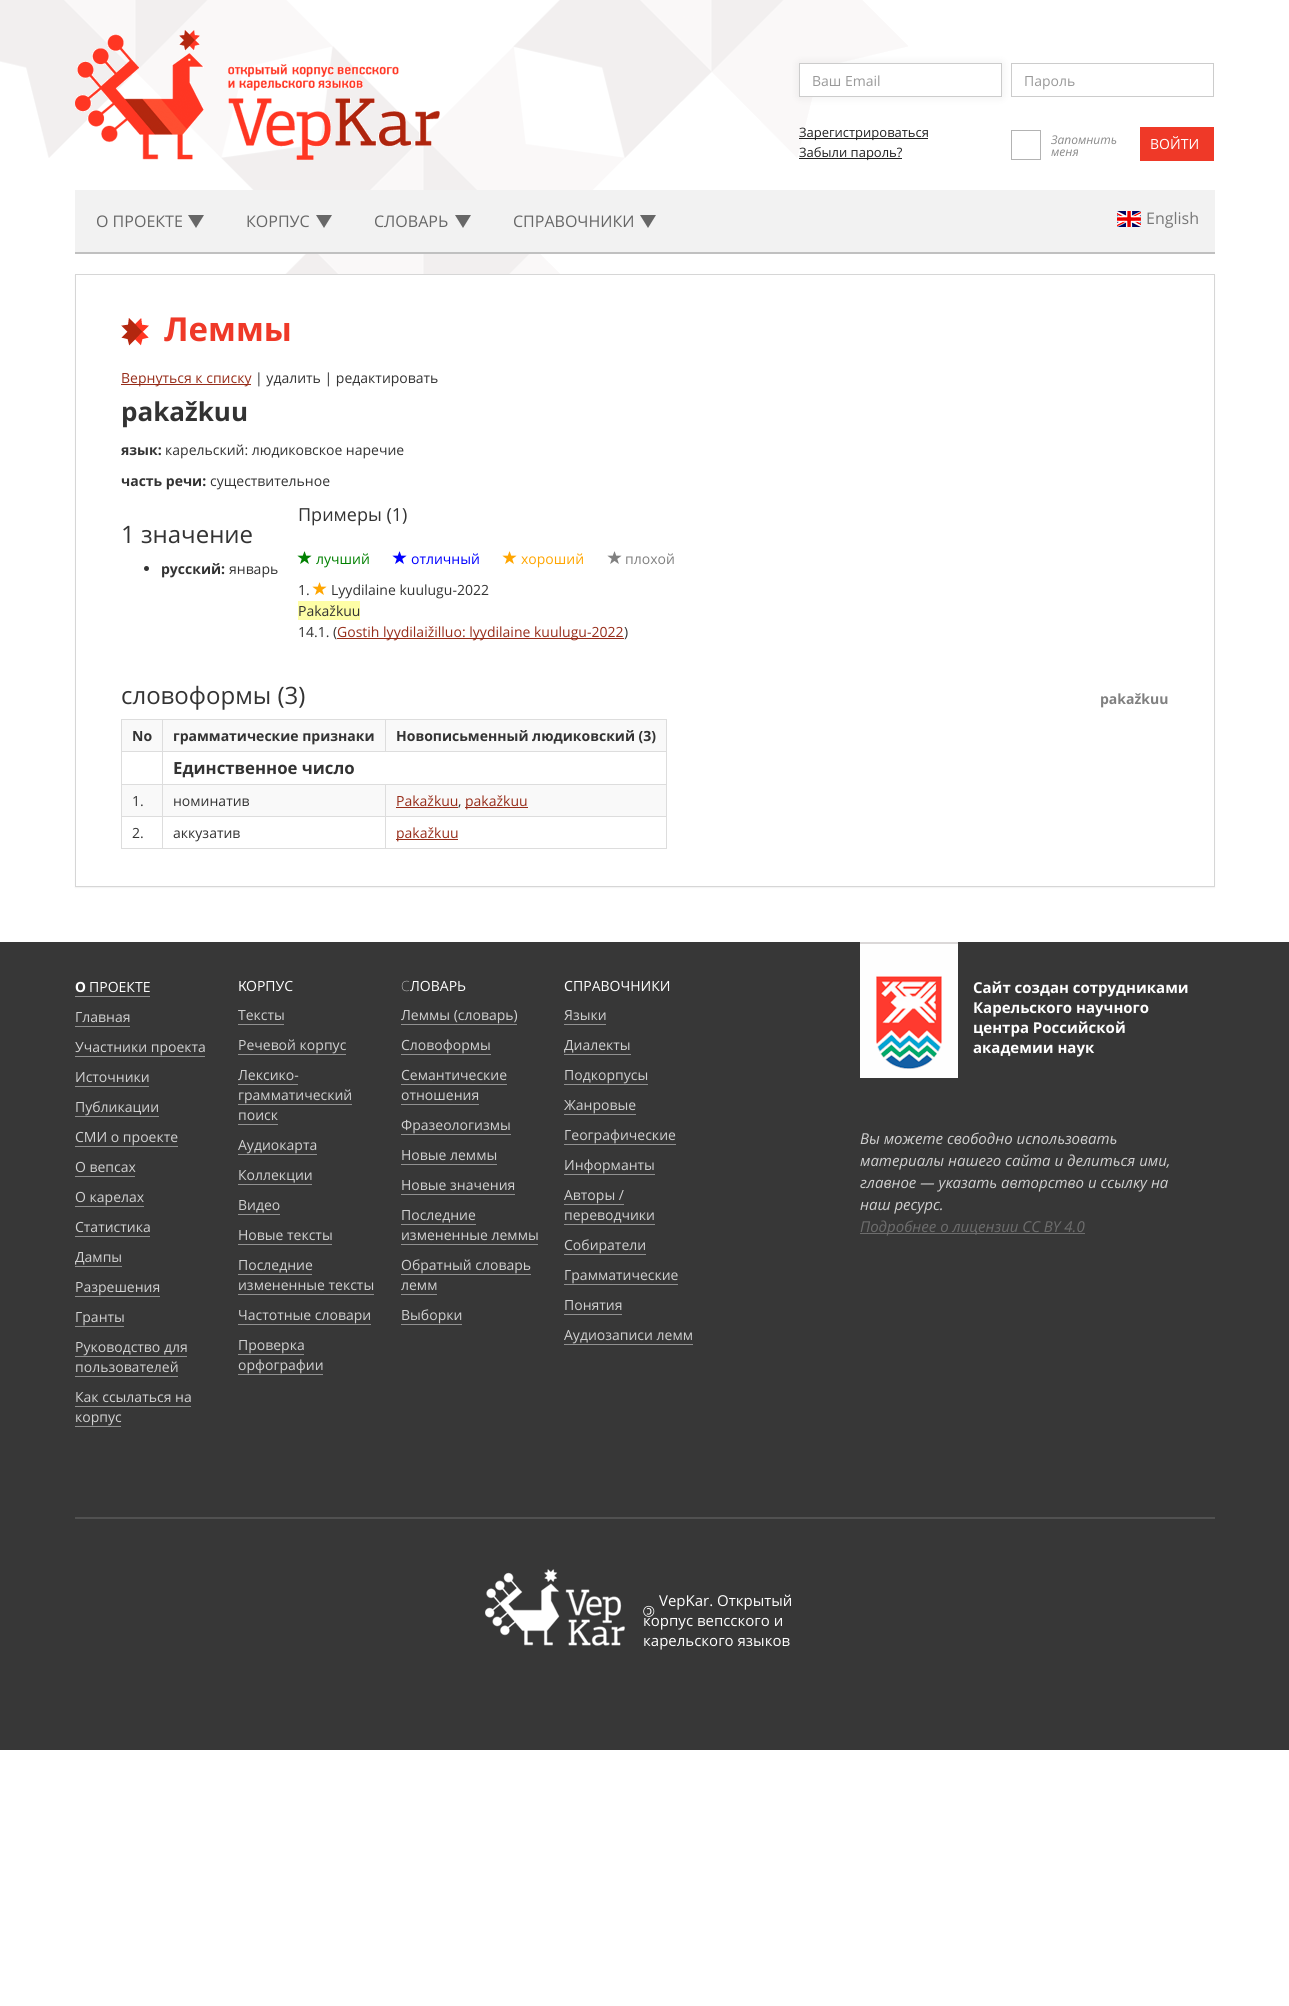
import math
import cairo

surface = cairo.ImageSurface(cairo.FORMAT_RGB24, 1289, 2006)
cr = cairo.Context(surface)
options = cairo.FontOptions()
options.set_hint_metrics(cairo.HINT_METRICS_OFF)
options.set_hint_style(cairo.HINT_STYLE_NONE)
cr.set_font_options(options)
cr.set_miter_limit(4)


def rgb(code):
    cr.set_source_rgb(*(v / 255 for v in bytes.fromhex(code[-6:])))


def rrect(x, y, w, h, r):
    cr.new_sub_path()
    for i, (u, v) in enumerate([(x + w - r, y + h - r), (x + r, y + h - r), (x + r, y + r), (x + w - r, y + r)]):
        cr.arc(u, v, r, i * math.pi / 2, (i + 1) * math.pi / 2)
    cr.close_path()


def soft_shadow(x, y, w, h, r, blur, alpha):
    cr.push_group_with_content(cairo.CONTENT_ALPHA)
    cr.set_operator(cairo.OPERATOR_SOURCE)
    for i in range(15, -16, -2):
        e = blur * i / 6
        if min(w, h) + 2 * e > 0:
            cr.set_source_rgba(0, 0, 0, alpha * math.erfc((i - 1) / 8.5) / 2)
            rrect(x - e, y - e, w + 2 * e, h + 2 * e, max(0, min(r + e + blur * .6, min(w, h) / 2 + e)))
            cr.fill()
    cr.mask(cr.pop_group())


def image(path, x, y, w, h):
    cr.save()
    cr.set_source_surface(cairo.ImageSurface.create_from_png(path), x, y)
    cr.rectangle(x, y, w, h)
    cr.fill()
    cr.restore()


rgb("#ffffff")
cr.paint()
image("img/1.png", 0, 0, 908, 274)
image("img/2.png", 75, 30, 365, 130)
cr.rectangle(1011.5, 63.5, 202, 33)
rgb("#cccccc")
cr.set_line_width(1)
cr.stroke()
rgb("#000000")
soft_shadow(799, 63, 203, 34, 0, 5, 0.07)
rgb("#ffffff")
cr.rectangle(799.5, 63.5, 202, 33)
cr.fill_preserve()
rgb("#cccccc")
cr.stroke()
rgb("#222222")
cr.rectangle(799, 138, 129, 1)
cr.fill()
cr.rectangle(799, 158, 103, 1)
cr.fill()
cr.rectangle(1011.5, 130.5, 29, 29)
rgb("#b3b3b3")
cr.stroke()
for x, y, w, h, color in [
    (1140, 127, 74, 34, "#ef3928"),
    (75, 190, 1140, 62, "#f2f2f2"),
    (75, 252, 1140, 2, "#c0c0c0"),
]:
    rgb(color)
    cr.rectangle(x, y, w, h)
    cr.fill()
rgb("#676767")
cr.new_path()
cr.move_to(188, 215)
cr.line_to(204, 215)
cr.line_to(196, 228)
cr.close_path()
cr.fill()
cr.new_path()
cr.move_to(316, 215)
cr.line_to(332, 215)
cr.line_to(324, 228)
cr.close_path()
cr.fill()
cr.new_path()
cr.move_to(455, 215)
cr.line_to(471, 215)
cr.line_to(463, 228)
cr.close_path()
cr.fill()
cr.new_path()
cr.move_to(640, 215)
cr.line_to(656, 215)
cr.line_to(648, 228)
cr.close_path()
cr.fill()
image("img/3.png", 1117, 211, 24, 16)
rgb("#000000")
soft_shadow(75, 275, 1140, 613, 0, 0.5, 0.05)
rgb("#ffffff")
cr.rectangle(75.5, 274.5, 1139, 612)
cr.fill_preserve()
rgb("#d6d6d6")
cr.stroke()
image("img/4.png", 121, 318, 28, 28)
rgb("#972d1a")
cr.rectangle(121, 384, 130, 1)
cr.fill()
rgb("#333333")
cr.arc(146.5, 568.5, 2.5, 0, 2 * math.pi)
cr.fill()
image("img/5.png", 297, 551, 15, 13)
image("img/6.png", 392, 551, 15, 13)
image("img/7.png", 502, 551, 15, 13)
image("img/8.png", 607, 551, 15, 13)
image("img/7.png", 312, 582, 15, 13)
for x, y, w, h, color in [
    (298, 601, 62, 19, "#fefea6"),
    (337, 638, 287, 1, "#972d1a"),
    (121, 719, 546, 1, "#dddddd"),
    (666, 719, 1, 130, "#dddddd"),
    (121, 848, 546, 1, "#dddddd"),
    (121, 719, 1, 130, "#dddddd"),
    (122, 720, 544, 31, "#f9f9f9"),
    (162, 751, 505, 1, "#dddddd"),
    (385, 784, 282, 1, "#dddddd"),
    (122, 785, 544, 31, "#f9f9f9"),
    (385, 816, 282, 1, "#dddddd"),
    (385, 816, 1, 33, "#dddddd"),
    (162, 816, 224, 1, "#dddddd"),
    (385, 784, 1, 33, "#dddddd"),
    (162, 784, 224, 1, "#dddddd"),
    (162, 816, 1, 33, "#dddddd"),
    (121, 816, 42, 1, "#dddddd"),
    (162, 784, 1, 33, "#dddddd"),
    (121, 784, 42, 1, "#dddddd"),
    (162, 751, 1, 34, "#dddddd"),
    (121, 751, 42, 1, "#dddddd"),
    (162, 719, 1, 33, "#dddddd"),
    (385, 719, 1, 33, "#dddddd"),
    (396, 807, 62, 1, "#972d1a"),
    (465, 807, 63, 1, "#972d1a"),
    (396, 839, 62, 1, "#972d1a"),
    (0, 942, 1289, 808, "#373737"),
    (75, 996, 75, 1, "#909090"),
    (75, 1026, 55, 1, "#909090"),
    (75, 1056, 130, 1, "#909090"),
    (75, 1086, 74, 1, "#909090"),
    (75, 1116, 84, 1, "#909090"),
    (75, 1146, 103, 1, "#909090"),
    (75, 1176, 60, 1, "#909090"),
    (75, 1206, 69, 1, "#909090"),
    (75, 1236, 75, 1, "#909090"),
    (75, 1266, 47, 1, "#909090"),
    (75, 1296, 85, 1, "#909090"),
    (75, 1326, 49, 1, "#909090"),
    (75, 1356, 112, 1, "#909090"),
    (75, 1376, 103, 1, "#909090"),
    (75, 1406, 116, 1, "#909090"),
    (75, 1426, 46, 1, "#909090"),
    (238, 1024, 46, 1, "#909090"),
    (238, 1054, 108, 1, "#909090"),
    (238, 1084, 60, 1, "#909090"),
    (238, 1104, 114, 1, "#909090"),
    (238, 1124, 40, 1, "#909090"),
    (238, 1154, 79, 1, "#909090"),
    (238, 1184, 74, 1, "#909090"),
    (238, 1214, 42, 1, "#909090"),
    (238, 1244, 94, 1, "#909090"),
    (238, 1274, 74, 1, "#909090"),
    (238, 1294, 136, 1, "#909090"),
    (238, 1324, 133, 1, "#909090"),
    (238, 1354, 66, 1, "#909090"),
    (238, 1374, 85, 1, "#909090"),
    (401, 1024, 116, 1, "#909090"),
    (401, 1054, 90, 1, "#909090"),
    (401, 1084, 106, 1, "#909090"),
    (401, 1104, 78, 1, "#909090"),
    (401, 1134, 110, 1, "#909090"),
    (401, 1164, 96, 1, "#909090"),
    (401, 1194, 114, 1, "#909090"),
    (401, 1224, 75, 1, "#909090"),
    (401, 1244, 137, 1, "#909090"),
    (401, 1274, 130, 1, "#909090"),
    (401, 1294, 36, 1, "#909090"),
    (401, 1324, 61, 1, "#909090"),
    (564, 1024, 42, 1, "#909090"),
    (564, 1054, 67, 1, "#909090"),
    (564, 1084, 84, 1, "#909090"),
    (564, 1114, 72, 1, "#909090"),
    (564, 1144, 112, 1, "#909090"),
    (564, 1174, 91, 1, "#909090"),
    (564, 1204, 60, 1, "#909090"),
    (564, 1224, 91, 1, "#909090"),
    (564, 1254, 82, 1, "#909090"),
    (564, 1284, 114, 1, "#909090"),
    (564, 1314, 58, 1, "#909090"),
    (564, 1344, 129, 1, "#909090"),
    (860, 944, 98, 134, "#fefefe"),
]:
    rgb(color)
    cr.rectangle(x, y, w, h)
    cr.fill()
image("img/9.png", 876, 976, 66, 93)
for x, y, w, h, color in [
    (860, 942, 98, 2, "#dbd8d8"),
    (860, 1233, 225, 1, "#6d6d6d"),
    (75, 1517, 1140, 2, "#515151"),
]:
    rgb(color)
    cr.rectangle(x, y, w, h)
    cr.fill()
image("img/10.png", 485, 1569, 140, 77)
cr.select_font_face("Open Sans")
cr.set_font_size(14)
rgb("#999999")
cr.move_to(812, 86)
cr.show_text("Ваш Email")
cr.move_to(1024, 86)
cr.show_text("Пароль")
cr.set_font_size(13)
rgb("#222222")
cr.move_to(799, 137)
cr.show_text("Зарегистрироваться")
cr.move_to(799, 157)
cr.show_text("Забыли пароль?")
cr.select_font_face("Open Sans", cairo.FONT_SLANT_ITALIC)
cr.set_font_size(12)
rgb("#8a8a8a")
cr.move_to(1051, 144)
cr.show_text("Запомнить")
cr.move_to(1051, 156)
cr.show_text("меня")
cr.select_font_face("Open Sans")
cr.set_font_size(14)
rgb("#ffffff")
cr.move_to(1150, 149)
cr.show_text("ВОЙТИ")
cr.set_font_size(16)
rgb("#676767")
for x, y, s in [
    (96, 227, "О ПРОЕКТЕ"),
    (246, 227, "КОРПУС"),
    (374, 227, "СЛОВАРЬ"),
    (513, 227, "CПРАВОЧНИКИ"),
]:
    cr.move_to(x, y)
    cr.show_text(s)
rgb("#777777")
cr.move_to(1146, 224)
cr.show_text("English")
cr.select_font_face("Open Sans", cairo.FONT_SLANT_NORMAL, cairo.FONT_WEIGHT_BOLD)
cr.set_font_size(33)
rgb("#ef3928")
cr.move_to(164, 341)
cr.show_text("Леммы")
cr.select_font_face("Open Sans")
cr.set_font_size(14)
rgb("#972d1a")
cr.move_to(121, 383)
cr.show_text("Вернуться к списку")
rgb("#333333")
cr.move_to(255, 383)
cr.show_text("| удалить | редактировать")
cr.select_font_face("Open Sans", cairo.FONT_SLANT_NORMAL, cairo.FONT_WEIGHT_BOLD)
cr.set_font_size(26)
cr.move_to(121, 421)
cr.show_text("pakažkuu")
cr.set_font_size(14)
cr.move_to(121, 455)
cr.show_text("язык:")
cr.select_font_face("Open Sans")
cr.move_to(165, 455)
cr.show_text("карельский: людиковское наречие")
cr.select_font_face("Open Sans", cairo.FONT_SLANT_NORMAL, cairo.FONT_WEIGHT_BOLD)
cr.move_to(121, 486)
cr.show_text("часть речи:")
cr.select_font_face("Open Sans")
cr.move_to(210, 486)
cr.show_text("существительное")
cr.set_font_size(24)
cr.move_to(121, 543)
cr.show_text("1 значение")
cr.select_font_face("Open Sans", cairo.FONT_SLANT_NORMAL, cairo.FONT_WEIGHT_BOLD)
cr.set_font_size(14)
cr.move_to(161, 574)
cr.show_text("русский:")
cr.select_font_face("Open Sans")
cr.move_to(229, 574)
cr.show_text("январь")
cr.set_font_size(18)
cr.move_to(298, 521)
cr.show_text("Примеры (1)")
cr.set_font_size(14)
rgb("#008000")
cr.move_to(316, 564)
cr.show_text("лучший")
rgb("#0000ff")
cr.move_to(411, 564)
cr.show_text("отличный")
rgb("#ffa500")
cr.move_to(521, 564)
cr.show_text("хороший")
rgb("#808080")
cr.move_to(625, 564)
cr.show_text("плохой")
rgb("#333333")
for x, y, s in [
    (298, 595, "1."),
    (331, 595, "Lyydilaine kuulugu-2022"),
    (298, 616, "Pakažkuu"),
    (298, 637, "14.1. ("),
]:
    cr.move_to(x, y)
    cr.show_text(s)
rgb("#972d1a")
cr.move_to(337, 637)
cr.show_text("Gostih lyydilaižilluo: lyydilaine kuulugu-2022")
rgb("#333333")
cr.move_to(624, 637)
cr.show_text(")")
cr.set_font_size(24)
cr.move_to(121, 704)
cr.show_text("словоформы (3)")
cr.select_font_face("Open Sans", cairo.FONT_SLANT_NORMAL, cairo.FONT_WEIGHT_BOLD)
cr.set_font_size(14)
rgb("#808080")
cr.move_to(1100, 704)
cr.show_text("pakažkuu")
rgb("#333333")
for x, y, s in [
    (132, 741, "No"),
    (173, 741, "грамматические признаки"),
    (396, 741, "Новописьменный людиковский (3)"),
]:
    cr.move_to(x, y)
    cr.show_text(s)
cr.set_font_size(16.75)
cr.move_to(173, 774)
cr.show_text("Единственное число")
cr.select_font_face("Open Sans")
cr.set_font_size(14)
cr.move_to(132, 806)
cr.show_text("1.")
cr.move_to(173, 806)
cr.show_text("номинатив")
rgb("#972d1a")
cr.move_to(396, 806)
cr.show_text("Pakažkuu")
rgb("#333333")
cr.move_to(458, 806)
cr.show_text(",")
rgb("#972d1a")
cr.move_to(465, 806)
cr.show_text("pakažkuu")
rgb("#333333")
cr.move_to(132, 838)
cr.show_text("2.")
cr.move_to(173, 838)
cr.show_text("аккузатив")
rgb("#972d1a")
cr.move_to(396, 838)
cr.show_text("pakažkuu")
cr.select_font_face("Noto Sans", cairo.FONT_SLANT_NORMAL, cairo.FONT_WEIGHT_BOLD)
rgb("#ffffff")
cr.move_to(75, 992)
cr.show_text("О")
cr.select_font_face("Open Sans")
cr.move_to(89, 992)
cr.show_text("ПРОЕКТЕ")
rgb("#d1d1d1")
for x, y, s in [
    (75, 1022, "Главная"),
    (75, 1052, "Участники проекта"),
    (75, 1082, "Источники"),
    (75, 1112, "Публикации"),
    (75, 1142, "СМИ о проекте"),
    (75, 1172, "О вепсах"),
    (75, 1202, "О карелах"),
    (75, 1232, "Статистика"),
    (75, 1262, "Дампы"),
    (75, 1292, "Разрешения"),
    (75, 1322, "Гранты"),
    (75, 1352, "Руководство для"),
    (75, 1372, "пользователей"),
    (75, 1402, "Как ссылаться на"),
    (75, 1422, "корпус"),
]:
    cr.move_to(x, y)
    cr.show_text(s)
cr.select_font_face("Noto Sans")
rgb("#ffffff")
cr.move_to(238, 991)
cr.show_text("К")
cr.select_font_face("Open Sans")
cr.move_to(246, 991)
cr.show_text("ОРПУС")
rgb("#d1d1d1")
for x, y, s in [
    (238, 1020, "Тексты"),
    (238, 1050, "Речевой корпус"),
    (238, 1080, "Лексико-"),
    (238, 1100, "грамматический"),
    (238, 1120, "поиск"),
    (238, 1150, "Аудиокарта"),
    (238, 1180, "Коллекции"),
    (238, 1210, "Видео"),
    (238, 1240, "Новые тексты"),
    (238, 1270, "Последние"),
    (238, 1290, "измененные тексты"),
    (238, 1320, "Частотные словари"),
    (238, 1350, "Проверка"),
    (238, 1370, "орфографии"),
]:
    cr.move_to(x, y)
    cr.show_text(s)
cr.select_font_face("Noto Sans Thin")
rgb("#ffffff")
cr.move_to(401, 991)
cr.show_text("С")
cr.select_font_face("Open Sans")
cr.move_to(410, 991)
cr.show_text("ЛОВАРЬ")
rgb("#d1d1d1")
for x, y, s in [
    (401, 1020, "Леммы (словарь)"),
    (401, 1050, "Словоформы"),
    (401, 1080, "Семантические"),
    (401, 1100, "отношения"),
    (401, 1130, "Фразеологизмы"),
    (401, 1160, "Новые леммы"),
    (401, 1190, "Новые значения"),
    (401, 1220, "Последние"),
    (401, 1240, "измененные леммы"),
    (401, 1270, "Обратный словарь"),
    (401, 1290, "лемм"),
    (401, 1320, "Выборки"),
]:
    cr.move_to(x, y)
    cr.show_text(s)
cr.select_font_face("Noto Sans")
rgb("#ffffff")
cr.move_to(564, 991)
cr.show_text("C")
cr.select_font_face("Open Sans")
cr.move_to(573, 991)
cr.show_text("ПРАВОЧНИКИ")
rgb("#d1d1d1")
for x, y, s in [
    (564, 1020, "Языки"),
    (564, 1050, "Диалекты"),
    (564, 1080, "Подкорпусы"),
    (564, 1110, "Жанровые"),
    (564, 1140, "Географические"),
    (564, 1170, "Информанты"),
    (564, 1200, "Авторы /"),
    (564, 1220, "переводчики"),
    (564, 1250, "Собиратели"),
    (564, 1280, "Грамматические"),
    (564, 1310, "Понятия"),
    (564, 1340, "Аудиозаписи лемм"),
]:
    cr.move_to(x, y)
    cr.show_text(s)
cr.select_font_face("Open Sans", cairo.FONT_SLANT_NORMAL, cairo.FONT_WEIGHT_BOLD)
cr.set_font_size(15)
rgb("#ffffff")
for x, y, s in [
    (973, 993, "Сайт создан сотрудниками"),
    (973, 1013, "Карельского научного"),
    (973, 1033, "центра Российской"),
    (973, 1053, "академии наук"),
]:
    cr.move_to(x, y)
    cr.show_text(s)
cr.select_font_face("Open Sans", cairo.FONT_SLANT_ITALIC)
rgb("#d1d1d1")
for x, y, s in [
    (860, 1144, "Вы можете свободно использовать"),
    (860, 1166, "материалы нашего сайта и делиться ими,"),
    (860, 1188, "главное — указать авторство и ссылку на"),
    (860, 1210, "наш ресурс."),
]:
    cr.move_to(x, y)
    cr.show_text(s)
rgb("#6d6d6d")
cr.move_to(860, 1232)
cr.show_text("Подробнее о лицензии CC BY 4.0")
cr.select_font_face("Open Sans")
rgb("#ffffff")
cr.save()
cr.translate(655, 1606)
cr.rotate(180 * math.pi / 180)
cr.move_to(0, 0)
cr.show_text("©")
cr.restore()
for x, y, s in [
    (659, 1606, "VepKar. Открытый"),
    (643, 1626, "корпус вепсского и"),
    (643, 1646, "карельского языков"),
]:
    cr.move_to(x, y)
    cr.show_text(s)
surface.write_to_png("page.png")
